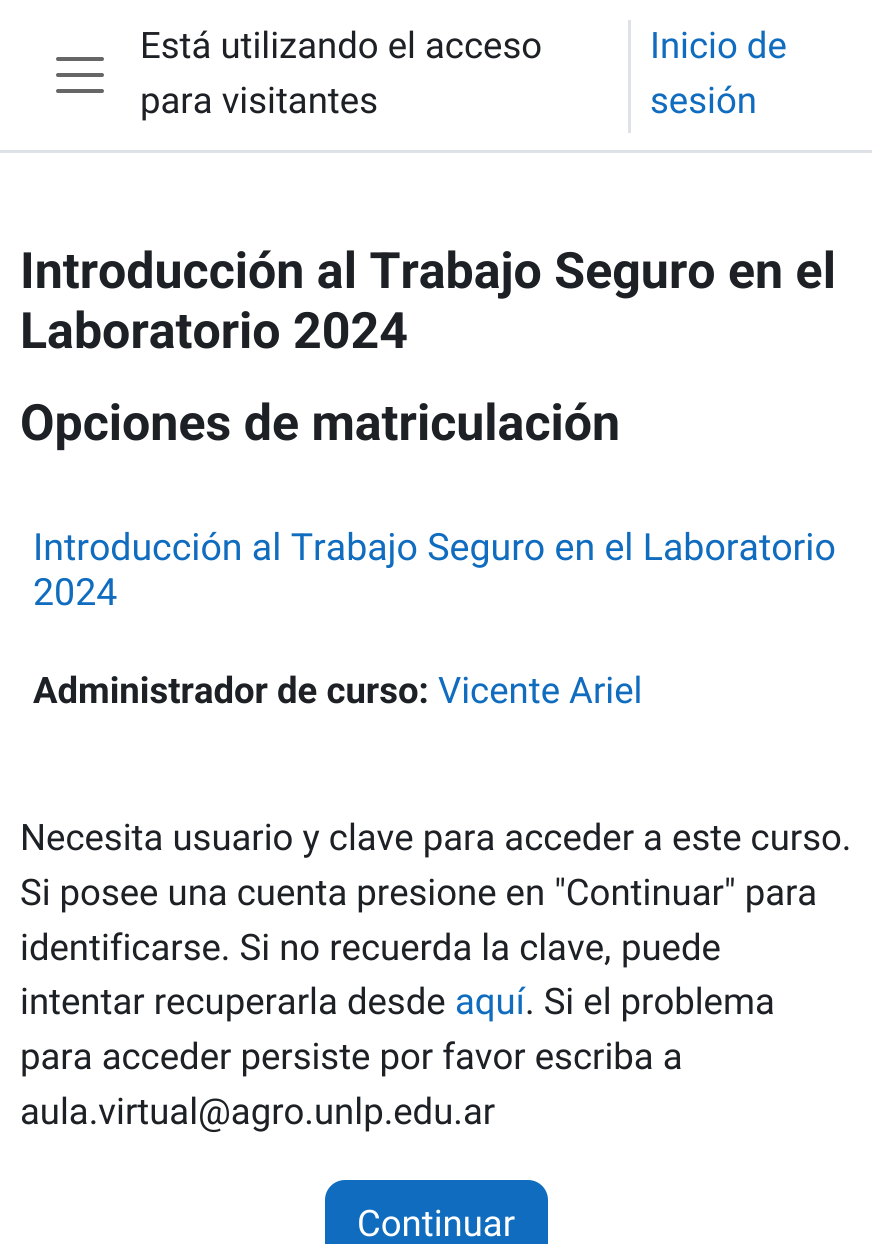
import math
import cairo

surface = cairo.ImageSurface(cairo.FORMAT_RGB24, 872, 1244)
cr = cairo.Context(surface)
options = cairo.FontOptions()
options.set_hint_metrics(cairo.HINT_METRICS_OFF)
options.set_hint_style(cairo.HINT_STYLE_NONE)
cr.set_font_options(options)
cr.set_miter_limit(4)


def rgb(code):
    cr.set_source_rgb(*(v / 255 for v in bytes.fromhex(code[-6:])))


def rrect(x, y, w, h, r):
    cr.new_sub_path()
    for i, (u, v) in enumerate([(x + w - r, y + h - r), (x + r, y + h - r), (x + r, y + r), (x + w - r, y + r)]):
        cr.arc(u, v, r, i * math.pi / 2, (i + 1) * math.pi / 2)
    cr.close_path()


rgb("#ffffff")
cr.paint()
rgb("#dee2e6")
cr.rectangle(0, 150, 872, 3)
cr.fill()
cr.new_path()
cr.move_to(58, 59)
cr.line_to(102, 59)
cr.move_to(58, 75)
cr.line_to(102, 75)
cr.move_to(58, 91)
cr.line_to(102, 91)
rgb("#666666")
cr.set_line_width(4)
cr.set_line_cap(cairo.LINE_CAP_ROUND)
cr.stroke()
rgb("#dee2e6")
cr.rectangle(628, 20, 3, 113)
cr.fill()
rgb("#0f6cbf")
rrect(326.5, 1181.5, 220, 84, 18.5)
cr.fill_preserve()
cr.set_line_width(3)
cr.set_line_cap(cairo.LINE_CAP_BUTT)
cr.stroke()
cr.select_font_face("Roboto")
cr.set_font_size(36.5)
rgb("#1d2125")
cr.move_to(140, 58)
cr.show_text("Está utilizando el acceso")
rgb("#0f6cbf")
cr.move_to(650, 58)
cr.show_text("Inicio de")
cr.move_to(650, 113)
cr.show_text("sesión")
rgb("#1d2125")
cr.move_to(140, 113)
cr.show_text("para visitantes")
cr.select_font_face("Roboto", cairo.FONT_SLANT_NORMAL, cairo.FONT_WEIGHT_BOLD)
cr.set_font_size(50.1)
for x, y, s in [
    (20, 288, "Introducción al Trabajo Seguro en el"),
    (20, 348, "Laboratorio 2024"),
    (20, 440, "Opciones de matriculación"),
]:
    cr.move_to(x, y)
    cr.show_text(s)
cr.select_font_face("Roboto")
cr.set_font_size(37.5)
rgb("#0f6cbf")
cr.move_to(33, 560)
cr.show_text("Introducción al Trabajo Seguro en el Laboratorio")
cr.move_to(33, 605)
cr.show_text("2024")
cr.select_font_face("Roboto", cairo.FONT_SLANT_NORMAL, cairo.FONT_WEIGHT_BOLD)
cr.set_font_size(36.5)
rgb("#1d2125")
cr.move_to(33, 703)
cr.show_text("Administrador de curso:")
cr.select_font_face("Roboto")
rgb("#0f6cbf")
cr.move_to(438, 703)
cr.show_text("Vicente Ariel")
rgb("#1d2125")
for x, y, s in [
    (20, 850, "Necesita usuario y clave para acceder a este curso."),
    (20, 905, "Si posee una cuenta presione en \"Continuar\" para"),
    (20, 960, "identificarse. Si no recuerda la clave,"),
    (621, 960, "puede"),
    (20, 1014, "intentar recuperarla desde"),
]:
    cr.move_to(x, y)
    cr.show_text(s)
rgb("#0f6cbf")
cr.move_to(455, 1014)
cr.show_text("aquí")
rgb("#1d2125")
for x, y, s in [
    (525, 1014, ". Si el problema"),
    (20, 1069, "para acceder persiste por favor escriba a"),
    (20, 1124, "aula.virtual@agro.unlp.edu.ar"),
]:
    cr.move_to(x, y)
    cr.show_text(s)
rgb("#ffffff")
cr.move_to(357, 1236)
cr.show_text("Continuar")
surface.write_to_png("page.png")
